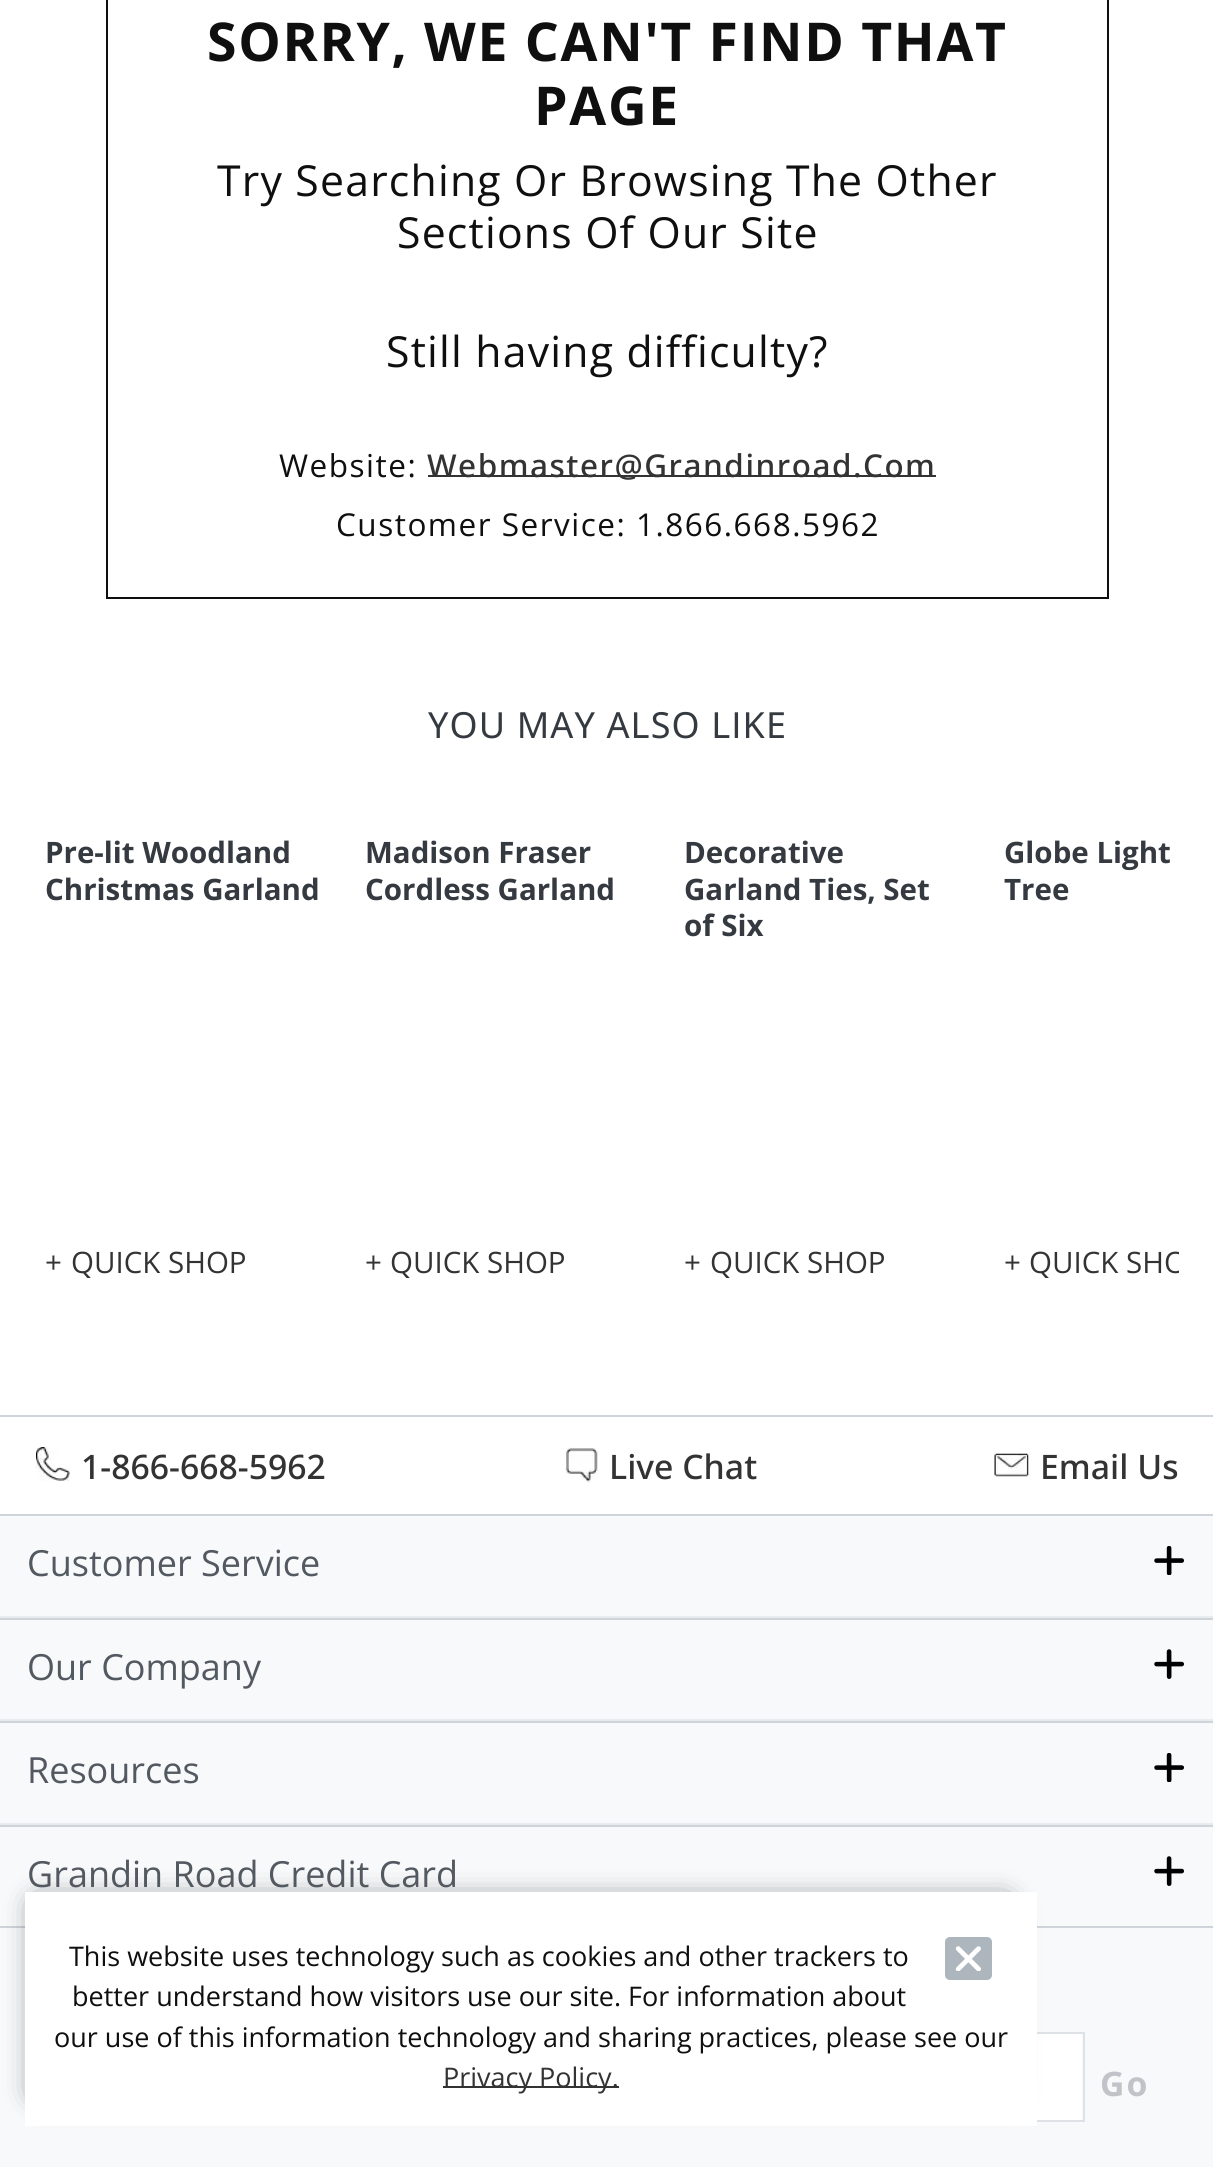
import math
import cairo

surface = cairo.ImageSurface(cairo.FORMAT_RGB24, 1213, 2167)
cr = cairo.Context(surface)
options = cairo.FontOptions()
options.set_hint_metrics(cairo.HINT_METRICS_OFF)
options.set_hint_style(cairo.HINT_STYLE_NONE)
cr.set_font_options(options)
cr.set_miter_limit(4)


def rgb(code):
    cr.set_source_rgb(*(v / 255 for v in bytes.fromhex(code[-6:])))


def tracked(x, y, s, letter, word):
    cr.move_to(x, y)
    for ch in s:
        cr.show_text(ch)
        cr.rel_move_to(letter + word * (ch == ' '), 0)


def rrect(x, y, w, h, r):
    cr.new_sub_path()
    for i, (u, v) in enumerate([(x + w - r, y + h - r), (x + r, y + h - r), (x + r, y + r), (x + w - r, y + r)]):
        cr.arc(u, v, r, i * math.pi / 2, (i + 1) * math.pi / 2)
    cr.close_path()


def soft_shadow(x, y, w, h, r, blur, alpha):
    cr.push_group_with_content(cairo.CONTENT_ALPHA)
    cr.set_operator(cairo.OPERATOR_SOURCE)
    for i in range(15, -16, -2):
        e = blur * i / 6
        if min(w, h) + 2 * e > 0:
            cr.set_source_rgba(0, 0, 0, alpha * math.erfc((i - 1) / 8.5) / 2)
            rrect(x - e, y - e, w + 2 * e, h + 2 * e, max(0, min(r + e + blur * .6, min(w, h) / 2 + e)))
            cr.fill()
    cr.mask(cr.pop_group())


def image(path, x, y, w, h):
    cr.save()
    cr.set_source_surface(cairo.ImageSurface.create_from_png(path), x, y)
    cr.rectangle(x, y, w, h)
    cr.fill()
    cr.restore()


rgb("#ffffff")
cr.paint()
cr.rectangle(107, -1, 1001, 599)
rgb("#0f0f0f")
cr.stroke()
rgb("#333333")
cr.rectangle(428, 475, 508, 2)
cr.fill()
rgb("#ced4da")
cr.rectangle(0, 1415, 1213, 2)
cr.fill()
image("img/1.png", 36, 1447, 34, 34)
image("img/2.png", 565, 1447, 33, 36)
image("img/3.png", 994, 1453, 35, 24)
for x, y, w, h, color in [
    (0, 1516, 1213, 100, "#f8f9fa"),
    (0, 1514, 1213, 2, "#ced4da"),
    (0, 1616, 1213, 2, "#e9ecef"),
]:
    rgb(color)
    cr.rectangle(x, y, w, h)
    cr.fill()
image("img/4.png", 1154, 1546, 30, 29)
for x, y, w, h, color in [
    (0, 1620, 1213, 99, "#f8f9fa"),
    (0, 1618, 1213, 2, "#ced4da"),
    (0, 1719, 1213, 2, "#e9ecef"),
]:
    rgb(color)
    cr.rectangle(x, y, w, h)
    cr.fill()
image("img/5.png", 1154, 1649, 30, 30)
for x, y, w, h, color in [
    (0, 1723, 1213, 100, "#f8f9fa"),
    (0, 1721, 1213, 2, "#ced4da"),
    (0, 1823, 1213, 2, "#e9ecef"),
]:
    rgb(color)
    cr.rectangle(x, y, w, h)
    cr.fill()
image("img/4.png", 1154, 1753, 30, 29)
rgb("#f8f9fa")
cr.rectangle(0, 1827, 1213, 99)
cr.fill()
rgb("#ced4da")
cr.rectangle(0, 1825, 1213, 2)
cr.fill()
image("img/5.png", 1154, 1856, 30, 30)
for x, y, w, h, color in [
    (0, 1928, 1213, 239, "#f8f9fa"),
    (0, 1926, 1213, 2, "#ced4da"),
    (1037, 2034, 45, 86, "#ffffff"),
]:
    rgb(color)
    cr.rectangle(x, y, w, h)
    cr.fill()
cr.rectangle(28, 2033, 1056, 88)
rgb("#dee2e6")
cr.stroke()
rgb("#000000")
soft_shadow(38, 1904, 968, 189, 0, 14.5, 0.75)
rgb("#ffffff")
cr.rectangle(25, 1892, 1012, 234)
cr.fill()
rgb("#adb5bd")
rrect(945, 1937, 47, 43, 5)
cr.fill()
image("img/6.png", 955, 1946, 26, 25)
rgb("#333333")
cr.rectangle(443, 2086, 176, 2)
cr.fill()
cr.select_font_face("Open Sans", cairo.FONT_SLANT_NORMAL, cairo.FONT_WEIGHT_BOLD)
cr.set_font_size(53.5)
rgb("#0f0f0f")
tracked(207, 61, "SORRY, WE CAN'T FIND THAT", 1.7, 0)
tracked(534, 125, "PAGE", 1.7, 0)
cr.select_font_face("Open Sans")
cr.set_font_size(42.75)
for x, y, s in [
    (217, 196, "Try Searching Or Browsing The Other"),
    (397, 248, "Sections Of Our Site"),
    (386, 367, "Still having difficulty?"),
]:
    tracked(x, y, s, 1.2, 0)
cr.set_font_size(31.5)
tracked(279, 477, "Website:", 1.5, 0)
cr.select_font_face("Open Sans Medium")
rgb("#333333")
tracked(427, 477, "Webmaster@Grandinroad.Com", 1.5, 0)
cr.select_font_face("Open Sans")
rgb("#0f0f0f")
tracked(336, 536, "Customer Service: 1.866.668.5962", 1.5, 0)
cr.select_font_face("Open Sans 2")
cr.set_font_size(36)
rgb("#343a40")
tracked(428, 738, "YOU MAY ALSO LIKE", 1.1, 0)
cr.select_font_face("Open Sans", cairo.FONT_SLANT_NORMAL, cairo.FONT_WEIGHT_BOLD)
cr.set_font_size(29.5)
cr.move_to(45, 863)
cr.show_text("Pre-lit Woodland")
cr.move_to(45, 900)
cr.show_text("Christmas Garland")
cr.select_font_face("Open Sans")
rgb("#333333")
cr.move_to(45, 1273)
cr.show_text("+")
cr.move_to(71, 1273)
cr.show_text("QUICK SHOP")
cr.select_font_face("Open Sans", cairo.FONT_SLANT_NORMAL, cairo.FONT_WEIGHT_BOLD)
rgb("#343a40")
cr.move_to(365, 863)
cr.show_text("Madison Fraser")
cr.move_to(365, 900)
cr.show_text("Cordless Garland")
cr.select_font_face("Open Sans")
rgb("#333333")
cr.move_to(365, 1273)
cr.show_text("+")
cr.move_to(390, 1273)
cr.show_text("QUICK SHOP")
cr.select_font_face("Open Sans", cairo.FONT_SLANT_NORMAL, cairo.FONT_WEIGHT_BOLD)
rgb("#343a40")
for x, y, s in [
    (684, 863, "Decorative"),
    (684, 900, "Garland Ties, Set"),
    (684, 936, "of Six"),
]:
    cr.move_to(x, y)
    cr.show_text(s)
cr.select_font_face("Open Sans")
rgb("#333333")
cr.move_to(684, 1273)
cr.show_text("+")
cr.move_to(710, 1273)
cr.show_text("QUICK SHOP")
cr.select_font_face("Open Sans", cairo.FONT_SLANT_NORMAL, cairo.FONT_WEIGHT_BOLD)
rgb("#343a40")
cr.move_to(1004, 863)
cr.show_text("Globe Light")
cr.move_to(1004, 900)
cr.show_text("Tree")
cr.select_font_face("Open Sans")
rgb("#333333")
cr.move_to(1004, 1273)
cr.show_text("+")
cr.save()
cr.rectangle(36, 819, 1143, 466)
cr.clip()
cr.move_to(1029, 1273)
cr.show_text("QUICK SHO")
cr.restore()
cr.select_font_face("Open Sans Medium")
cr.set_font_size(33.75)
for x, y, s in [
    (81, 1479, "1-866-668-5962"),
    (609, 1479, "Live Chat"),
    (1040, 1479, "Email Us"),
]:
    cr.move_to(x, y)
    cr.show_text(s)
cr.select_font_face("Open Sans")
cr.set_font_size(36)
rgb("#525961")
for x, y, s in [
    (27, 1576, "Customer Service"),
    (27, 1680, "Our Company"),
    (27, 1783, "Resources"),
    (27, 1887, "Grandin Road Credit Card"),
]:
    cr.move_to(x, y)
    cr.show_text(s)
cr.select_font_face("Open Sans", cairo.FONT_SLANT_NORMAL, cairo.FONT_WEIGHT_BOLD)
cr.set_font_size(33.75)
rgb("#c0c4c8")
tracked(1100, 2096, "Go", 2, 0)
cr.select_font_face("Open Sans")
cr.set_font_size(27)
rgb("#0f0f0f")
for x, y, s in [
    (69, 1966, "This website uses technology such as cookies and other trackers to"),
    (72, 2006, "better understand how visitors use our site. For information about"),
    (54, 2047, "our use of this information technology and sharing practices, please see our"),
]:
    cr.move_to(x, y)
    cr.show_text(s)
rgb("#333333")
cr.move_to(443, 2087)
cr.show_text("Privacy Policy.")
surface.write_to_png("page.png")
